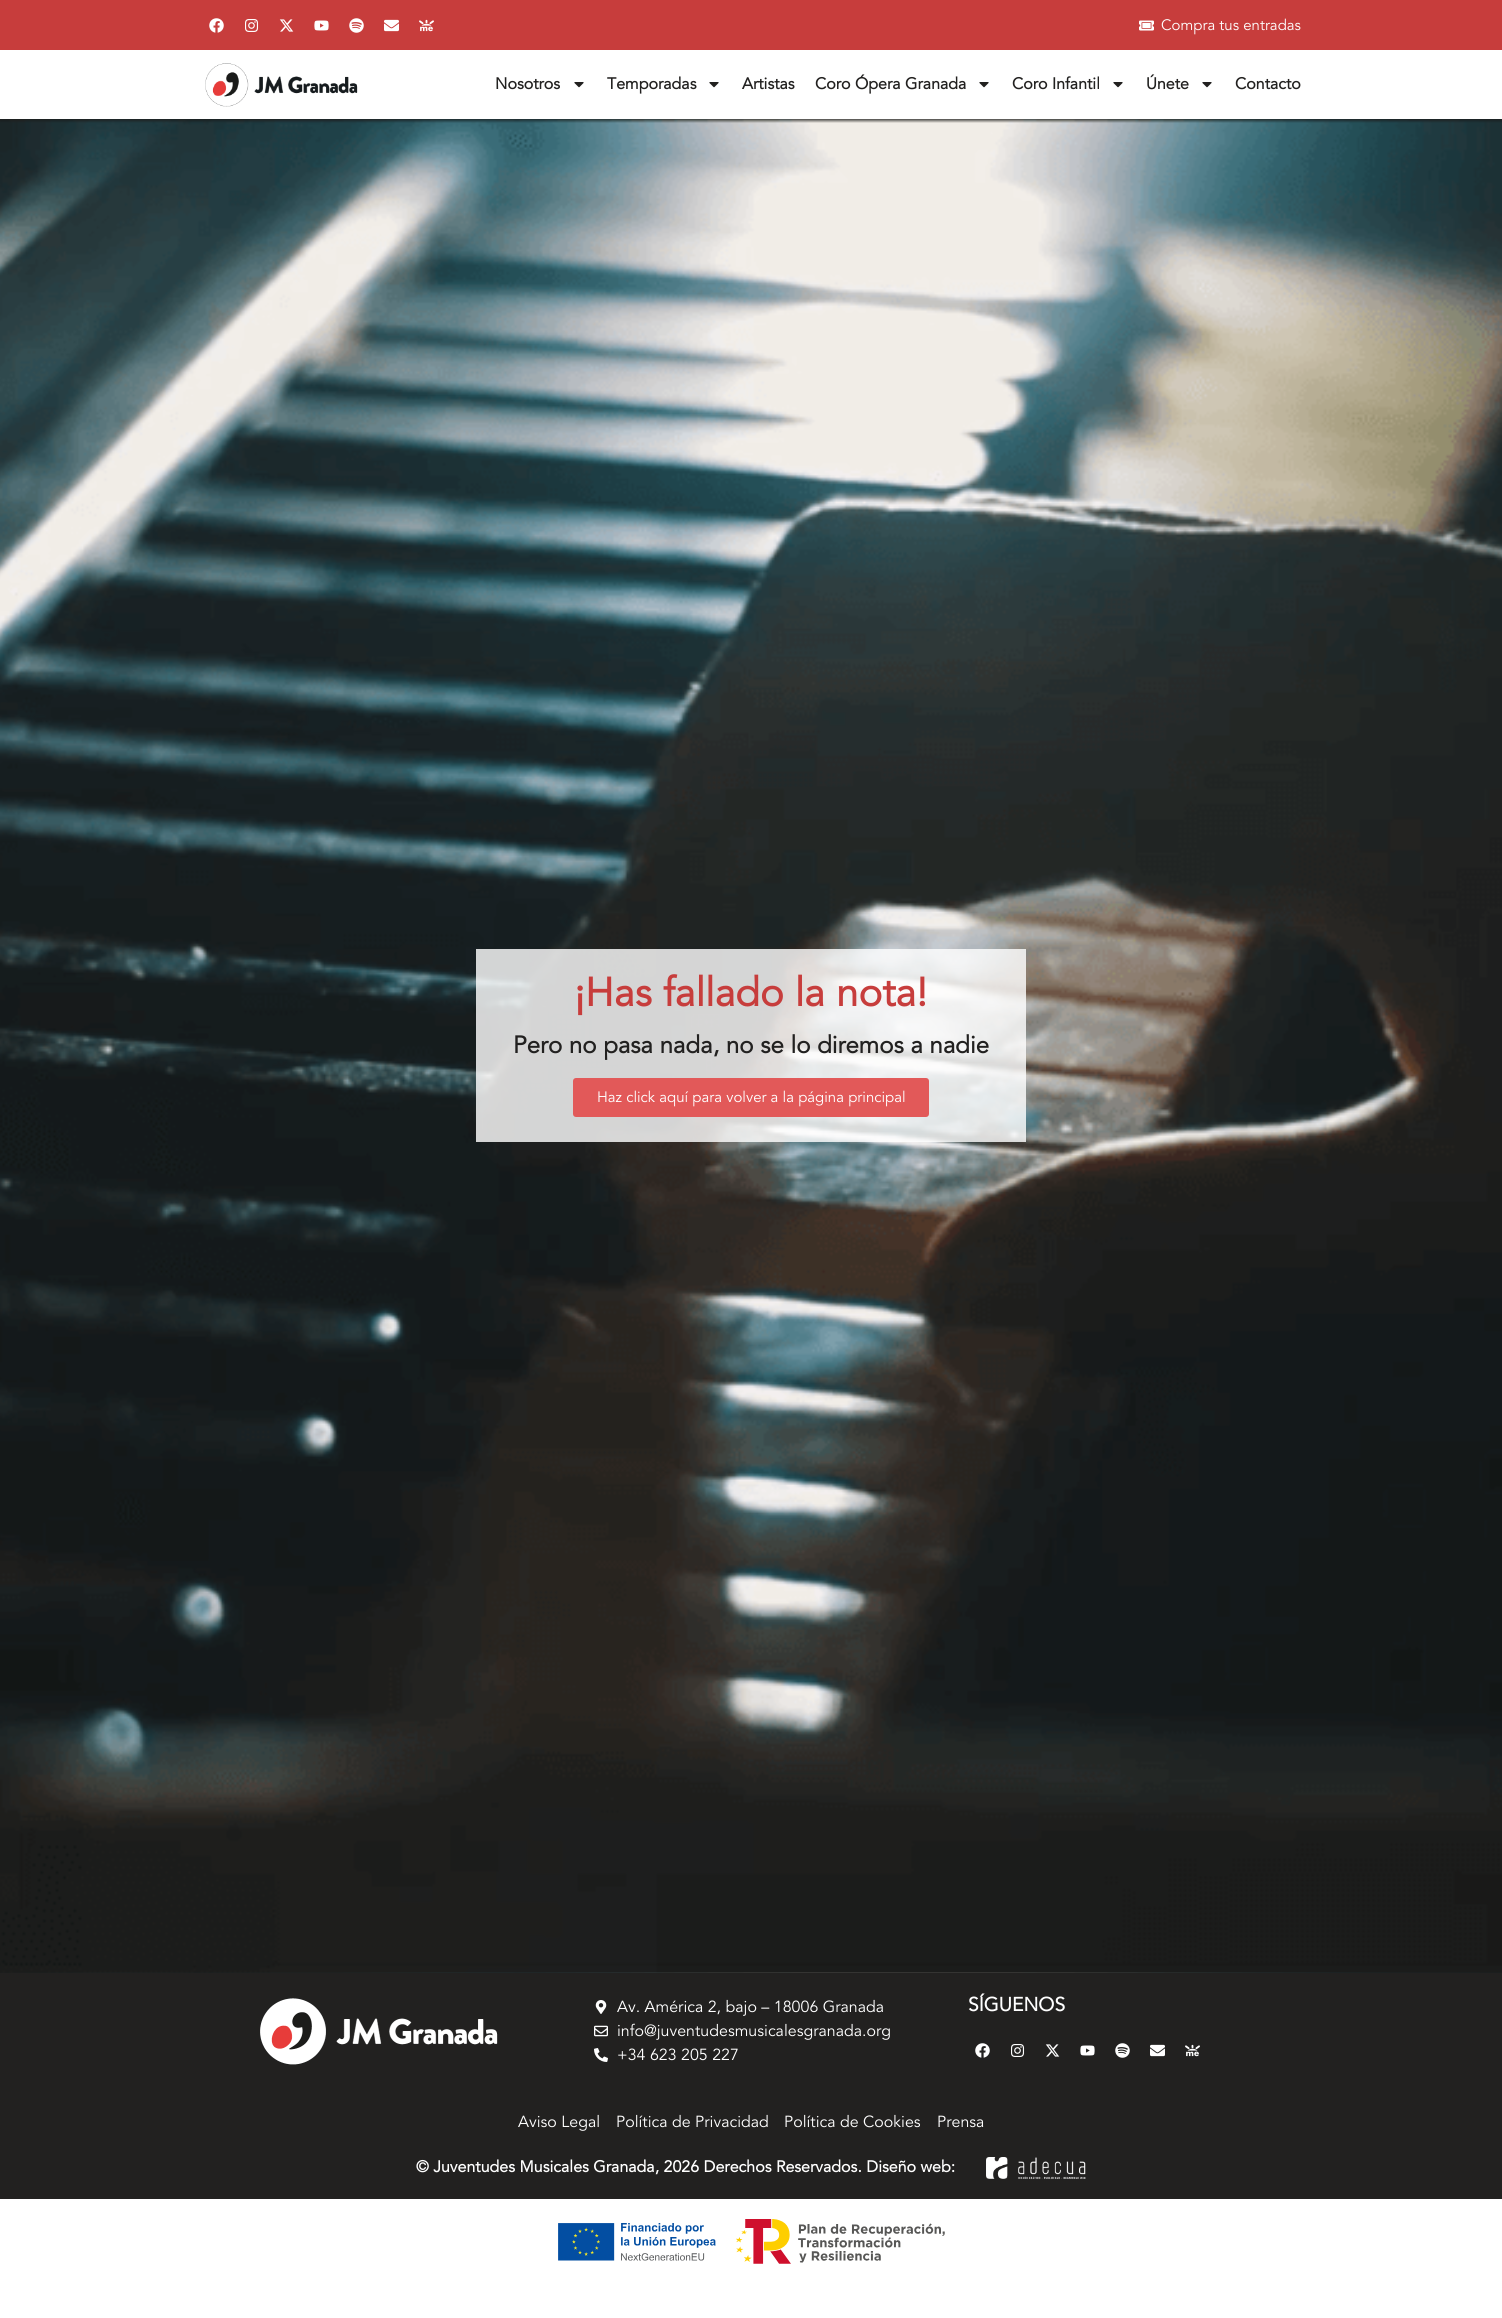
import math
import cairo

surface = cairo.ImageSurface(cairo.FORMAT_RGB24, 1502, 2318)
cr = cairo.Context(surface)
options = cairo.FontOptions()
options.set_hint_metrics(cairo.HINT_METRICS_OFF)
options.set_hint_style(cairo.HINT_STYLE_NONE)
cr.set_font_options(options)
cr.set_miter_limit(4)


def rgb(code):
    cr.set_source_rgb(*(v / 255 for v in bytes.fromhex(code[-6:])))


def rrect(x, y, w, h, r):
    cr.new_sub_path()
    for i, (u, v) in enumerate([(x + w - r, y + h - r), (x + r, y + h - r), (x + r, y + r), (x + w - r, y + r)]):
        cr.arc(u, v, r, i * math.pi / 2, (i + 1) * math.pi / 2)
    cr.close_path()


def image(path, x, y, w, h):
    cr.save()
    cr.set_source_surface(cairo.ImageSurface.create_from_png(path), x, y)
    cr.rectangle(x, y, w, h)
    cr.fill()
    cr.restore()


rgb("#ffffff")
cr.paint()
rgb("#c73d3c")
cr.rectangle(0, 0, 1502, 50)
cr.fill()
image("img/1.png", 209, 18, 15, 15)
image("img/2.png", 245, 19, 14, 13)
image("img/3.png", 279, 19, 15, 13)
image("img/4.png", 314, 20, 15, 11)
image("img/5.png", 349, 18, 15, 15)
image("img/6.png", 384, 19, 15, 13)
image("img/7.png", 419, 19, 15, 13)
image("img/8.png", 1139, 20, 15, 11)
image("img/9.png", 205, 63, 153, 44)
image("img/10.png", 574, 82, 10, 6)
image("img/10.png", 709, 82, 10, 6)
image("img/10.png", 979, 82, 10, 6)
image("img/10.png", 1113, 82, 10, 6)
image("img/10.png", 1202, 82, 10, 6)
image("img/11.png", 0, 119, 1502, 1854)
cr.set_source_rgba(1, 1, 1, 0.81)
cr.rectangle(476, 949, 550, 193)
cr.fill()
rgb("#e25959")
rrect(573, 1078, 356, 39, 3)
cr.fill()
rgb("#222120")
cr.rectangle(0, 1973, 1502, 226)
cr.fill()
image("img/12.png", 260, 1998, 238, 67)
image("img/13.png", 595, 2000, 12, 14)
image("img/14.png", 594, 2025, 14, 12)
image("img/15.png", 594, 2048, 14, 14)
image("img/16.png", 975, 2043, 15, 15)
image("img/17.png", 1011, 2044, 14, 13)
image("img/18.png", 1045, 2044, 15, 13)
image("img/19.png", 1080, 2045, 15, 11)
image("img/20.png", 1115, 2043, 15, 15)
image("img/21.png", 1150, 2044, 15, 13)
image("img/22.png", 1185, 2044, 15, 13)
image("img/23.png", 986, 2157, 100, 22)
image("img/24.png", 558, 2223, 158, 38)
image("img/25.png", 736, 2219, 209, 45)
cr.select_font_face("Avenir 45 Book")
cr.set_font_size(15)
rgb("#ffffff")
cr.move_to(1161, 30)
cr.show_text("Compra tus entradas")
cr.select_font_face("Avenir 45 Book", cairo.FONT_SLANT_NORMAL, cairo.FONT_WEIGHT_BOLD)
cr.set_font_size(16)
rgb("#222120")
for x, y, s in [
    (495, 89, "Nosotros"),
    (607, 89, "Temporadas"),
    (742, 89, "Artistas"),
    (815, 89, "Coro Ópera Granada"),
    (1012, 89, "Coro Infantil"),
    (1146, 89, "Únete"),
    (1235, 89, "Contacto"),
]:
    cr.move_to(x, y)
    cr.show_text(s)
cr.set_font_size(40)
rgb("#c73d3c")
cr.move_to(574, 1006)
cr.show_text("¡Has fallado la nota!")
cr.set_font_size(24)
rgb("#222120")
cr.move_to(513, 1053)
cr.show_text("Pero no pasa nada, no se lo diremos a nadie")
cr.select_font_face("Avenir 45 Book")
cr.set_font_size(15)
rgb("#ffffff")
cr.move_to(597, 1102)
cr.show_text("Haz click aquí para volver a la página principal")
cr.set_font_size(16)
for x, y, s in [
    (617, 2012, "Av. América 2, bajo – 18006 Granada"),
    (617, 2036, "info@juventudesmusicalesgranada.org"),
    (617, 2060, "+34 623 205 227"),
]:
    cr.move_to(x, y)
    cr.show_text(s)
cr.select_font_face("Avenir 45 Book", cairo.FONT_SLANT_NORMAL, cairo.FONT_WEIGHT_BOLD)
cr.set_font_size(19.25)
cr.move_to(968, 2011)
cr.show_text("SÍGUENOS")
cr.select_font_face("Avenir 45 Book")
cr.set_font_size(16)
for x, y, s in [
    (518, 2127, "Aviso Legal"),
    (616, 2127, "Política de Privacidad"),
    (784, 2127, "Política de Cookies"),
    (937, 2127, "Prensa"),
]:
    cr.move_to(x, y)
    cr.show_text(s)
cr.select_font_face("Avenir 45 Book", cairo.FONT_SLANT_NORMAL, cairo.FONT_WEIGHT_BOLD)
cr.move_to(416, 2172)
cr.show_text("© Juventudes Musicales Granada, 2026 Derechos Reservados. Diseño web:")
surface.write_to_png("page.png")
